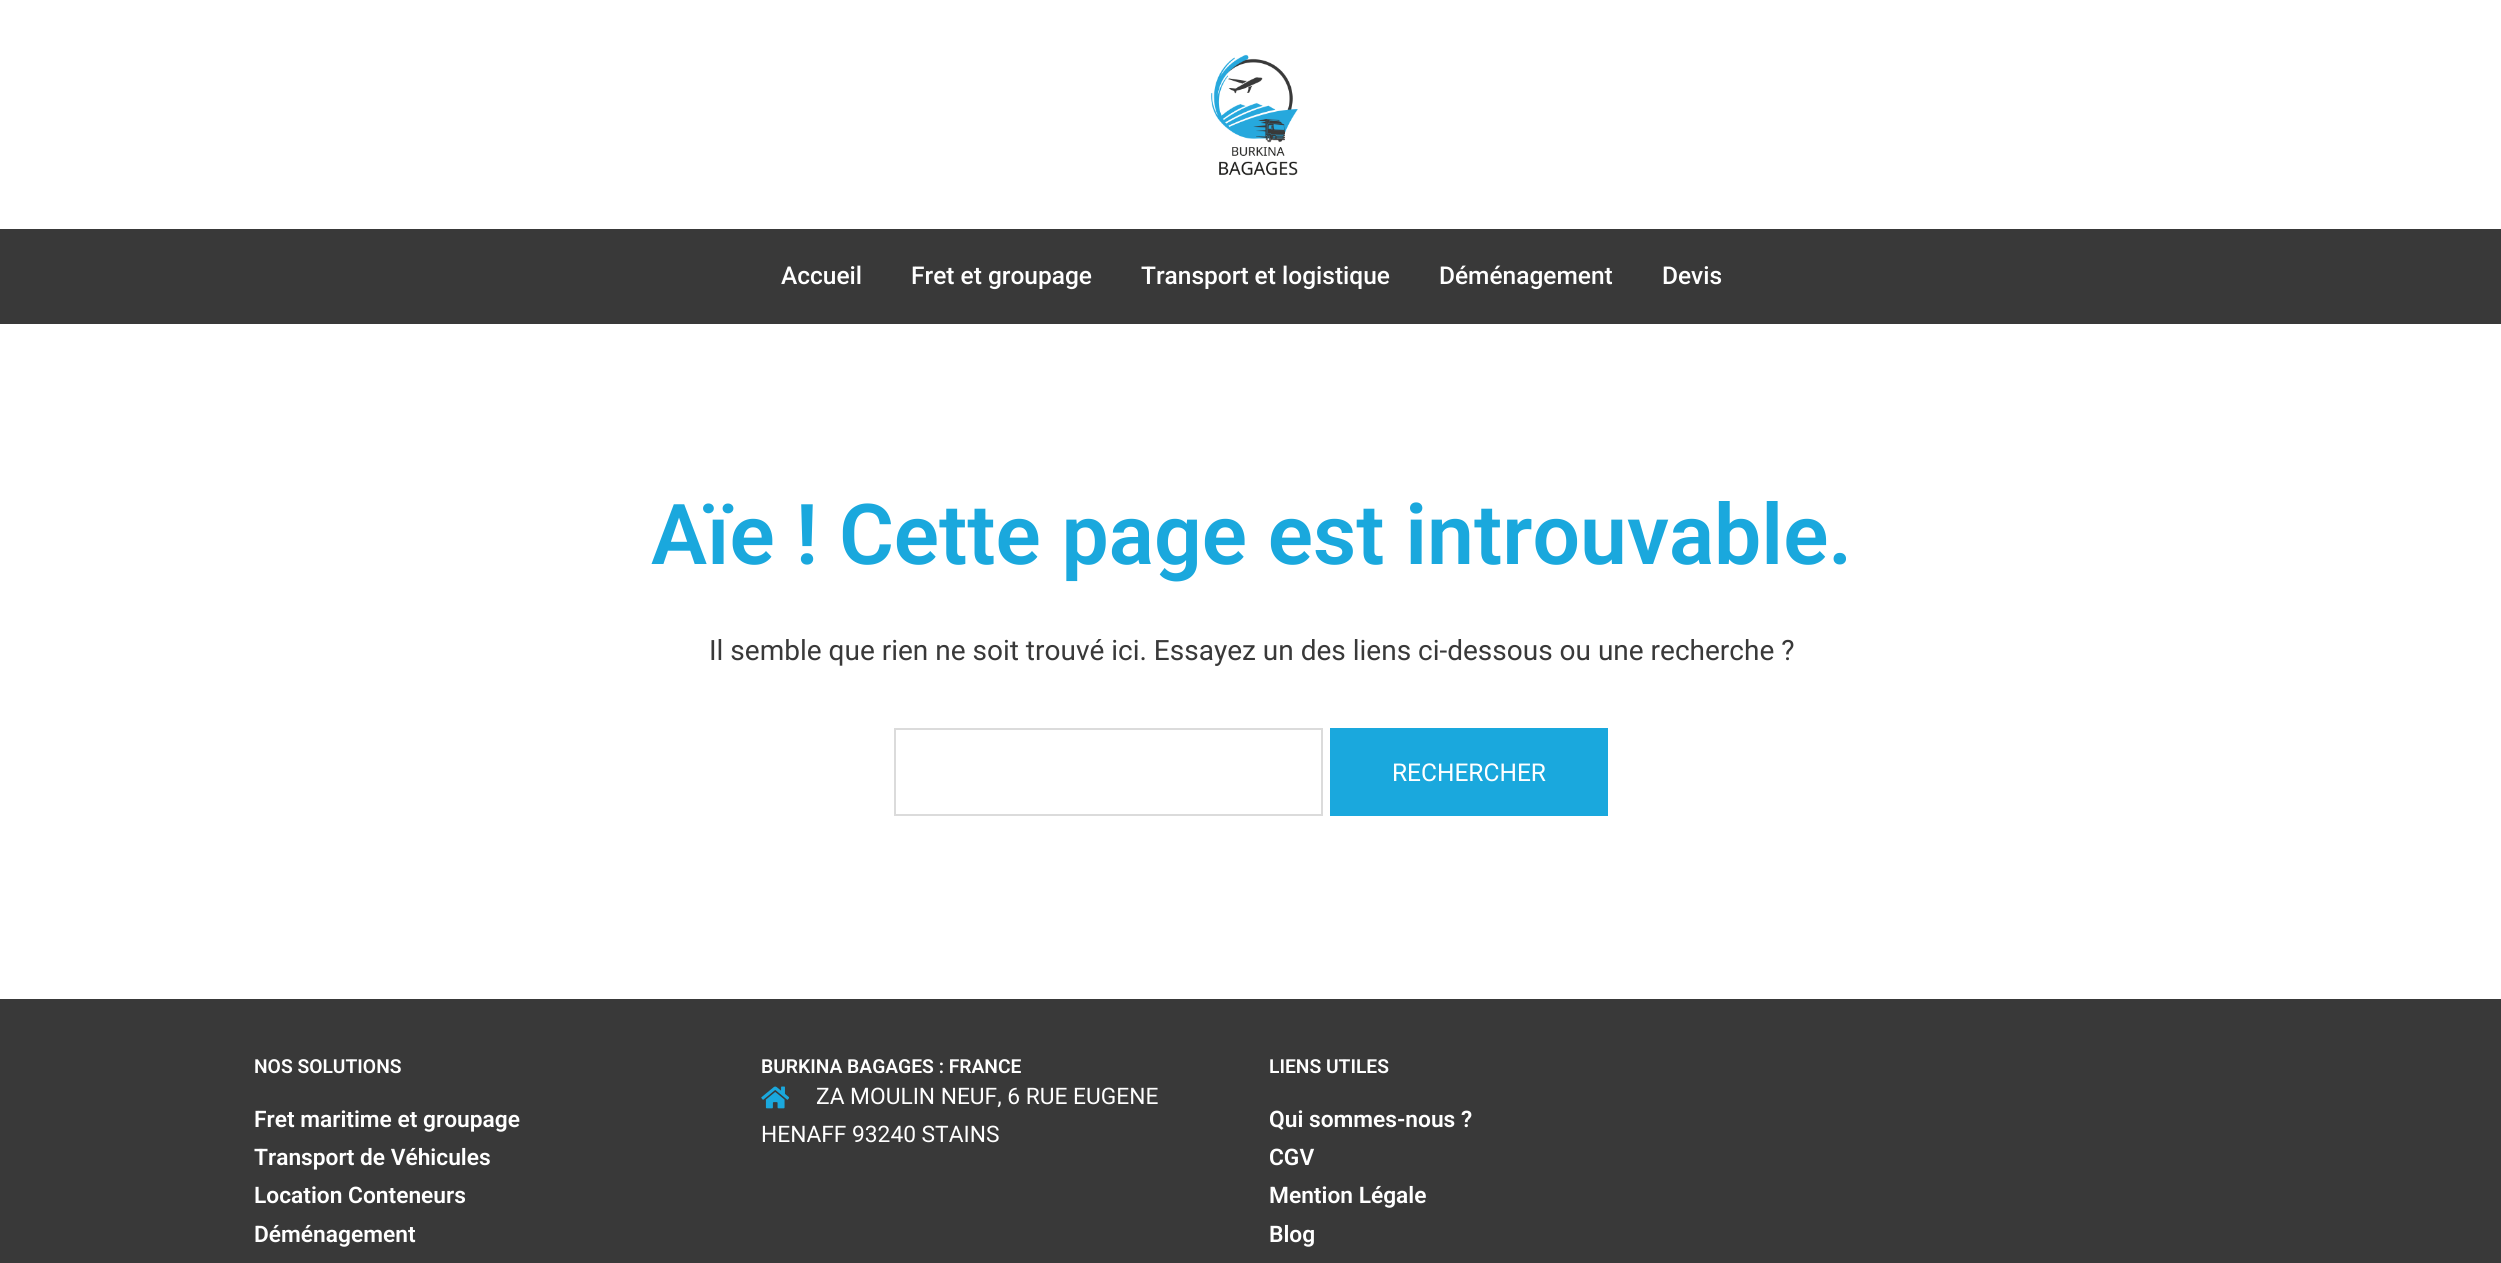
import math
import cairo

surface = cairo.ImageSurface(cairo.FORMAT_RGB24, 2501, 1263)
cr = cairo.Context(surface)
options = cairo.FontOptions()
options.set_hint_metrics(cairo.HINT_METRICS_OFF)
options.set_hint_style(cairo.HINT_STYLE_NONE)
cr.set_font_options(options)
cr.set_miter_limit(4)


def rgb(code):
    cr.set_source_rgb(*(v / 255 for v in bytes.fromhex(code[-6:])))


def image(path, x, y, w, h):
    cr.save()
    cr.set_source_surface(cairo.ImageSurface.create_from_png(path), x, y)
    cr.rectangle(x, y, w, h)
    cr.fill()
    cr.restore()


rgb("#ffffff")
cr.paint()
image("img/1.png", 1211, 54, 87, 122)
rgb("#393939")
cr.rectangle(0, 229, 2501, 95)
cr.fill()
cr.rectangle(895, 729, 427, 86)
rgb("#dbdbdb")
cr.stroke()
rgb("#1aa8dd")
cr.rectangle(1330, 728, 278, 88)
cr.fill()
rgb("#393939")
cr.rectangle(0, 999, 2501, 264)
cr.fill()
image("img/2.png", 761, 1086, 28, 23)
cr.select_font_face("Roboto Medium")
cr.set_font_size(24.5)
rgb("#ffffff")
for x, y, s in [
    (781, 284, "Accueil"),
    (911, 284, "Fret et groupage"),
    (1141, 284, "Transport et logistique"),
    (1439, 284, "Déménagement"),
    (1662, 284, "Devis"),
]:
    cr.move_to(x, y)
    cr.show_text(s)
cr.select_font_face("Roboto SemiBold")
cr.set_font_size(84)
rgb("#1aa8dd")
cr.move_to(651, 564)
cr.show_text("Aïe ! Cette page est introuvable.")
cr.select_font_face("Roboto")
cr.set_font_size(28)
rgb("#393939")
cr.move_to(709, 660)
cr.show_text("Il semble que rien ne soit trouvé ici. Essayez un des liens ci-dessous ou une recherche ?")
cr.set_font_size(24.5)
rgb("#ffffff")
cr.move_to(1392, 781)
cr.show_text("RECHERCHER")
cr.select_font_face("Roboto SemiBold")
cr.set_font_size(19.25)
cr.move_to(254, 1073)
cr.show_text("NOS SOLUTIONS")
cr.set_font_size(22.75)
for x, y, s in [
    (254, 1127, "Fret maritime et groupage"),
    (254, 1165, "Transport de Véhicules"),
    (254, 1203, "Location Conteneurs"),
    (254, 1242, "Déménagement"),
]:
    cr.move_to(x, y)
    cr.show_text(s)
cr.set_font_size(19.25)
cr.move_to(761, 1073)
cr.show_text("BURKINA BAGAGES : FRANCE")
cr.select_font_face("Roboto")
cr.set_font_size(22.75)
cr.move_to(816, 1104)
cr.show_text("ZA MOULIN NEUF, 6 RUE EUGENE")
cr.move_to(761, 1142)
cr.show_text("HENAFF 93240 STAINS")
cr.select_font_face("Roboto SemiBold")
cr.set_font_size(19.25)
cr.move_to(1269, 1073)
cr.show_text("LIENS UTILES")
cr.set_font_size(22.75)
for x, y, s in [
    (1269, 1127, "Qui sommes-nous ?"),
    (1269, 1165, "CGV"),
    (1269, 1203, "Mention Légale"),
    (1269, 1242, "Blog"),
]:
    cr.move_to(x, y)
    cr.show_text(s)
surface.write_to_png("page.png")
